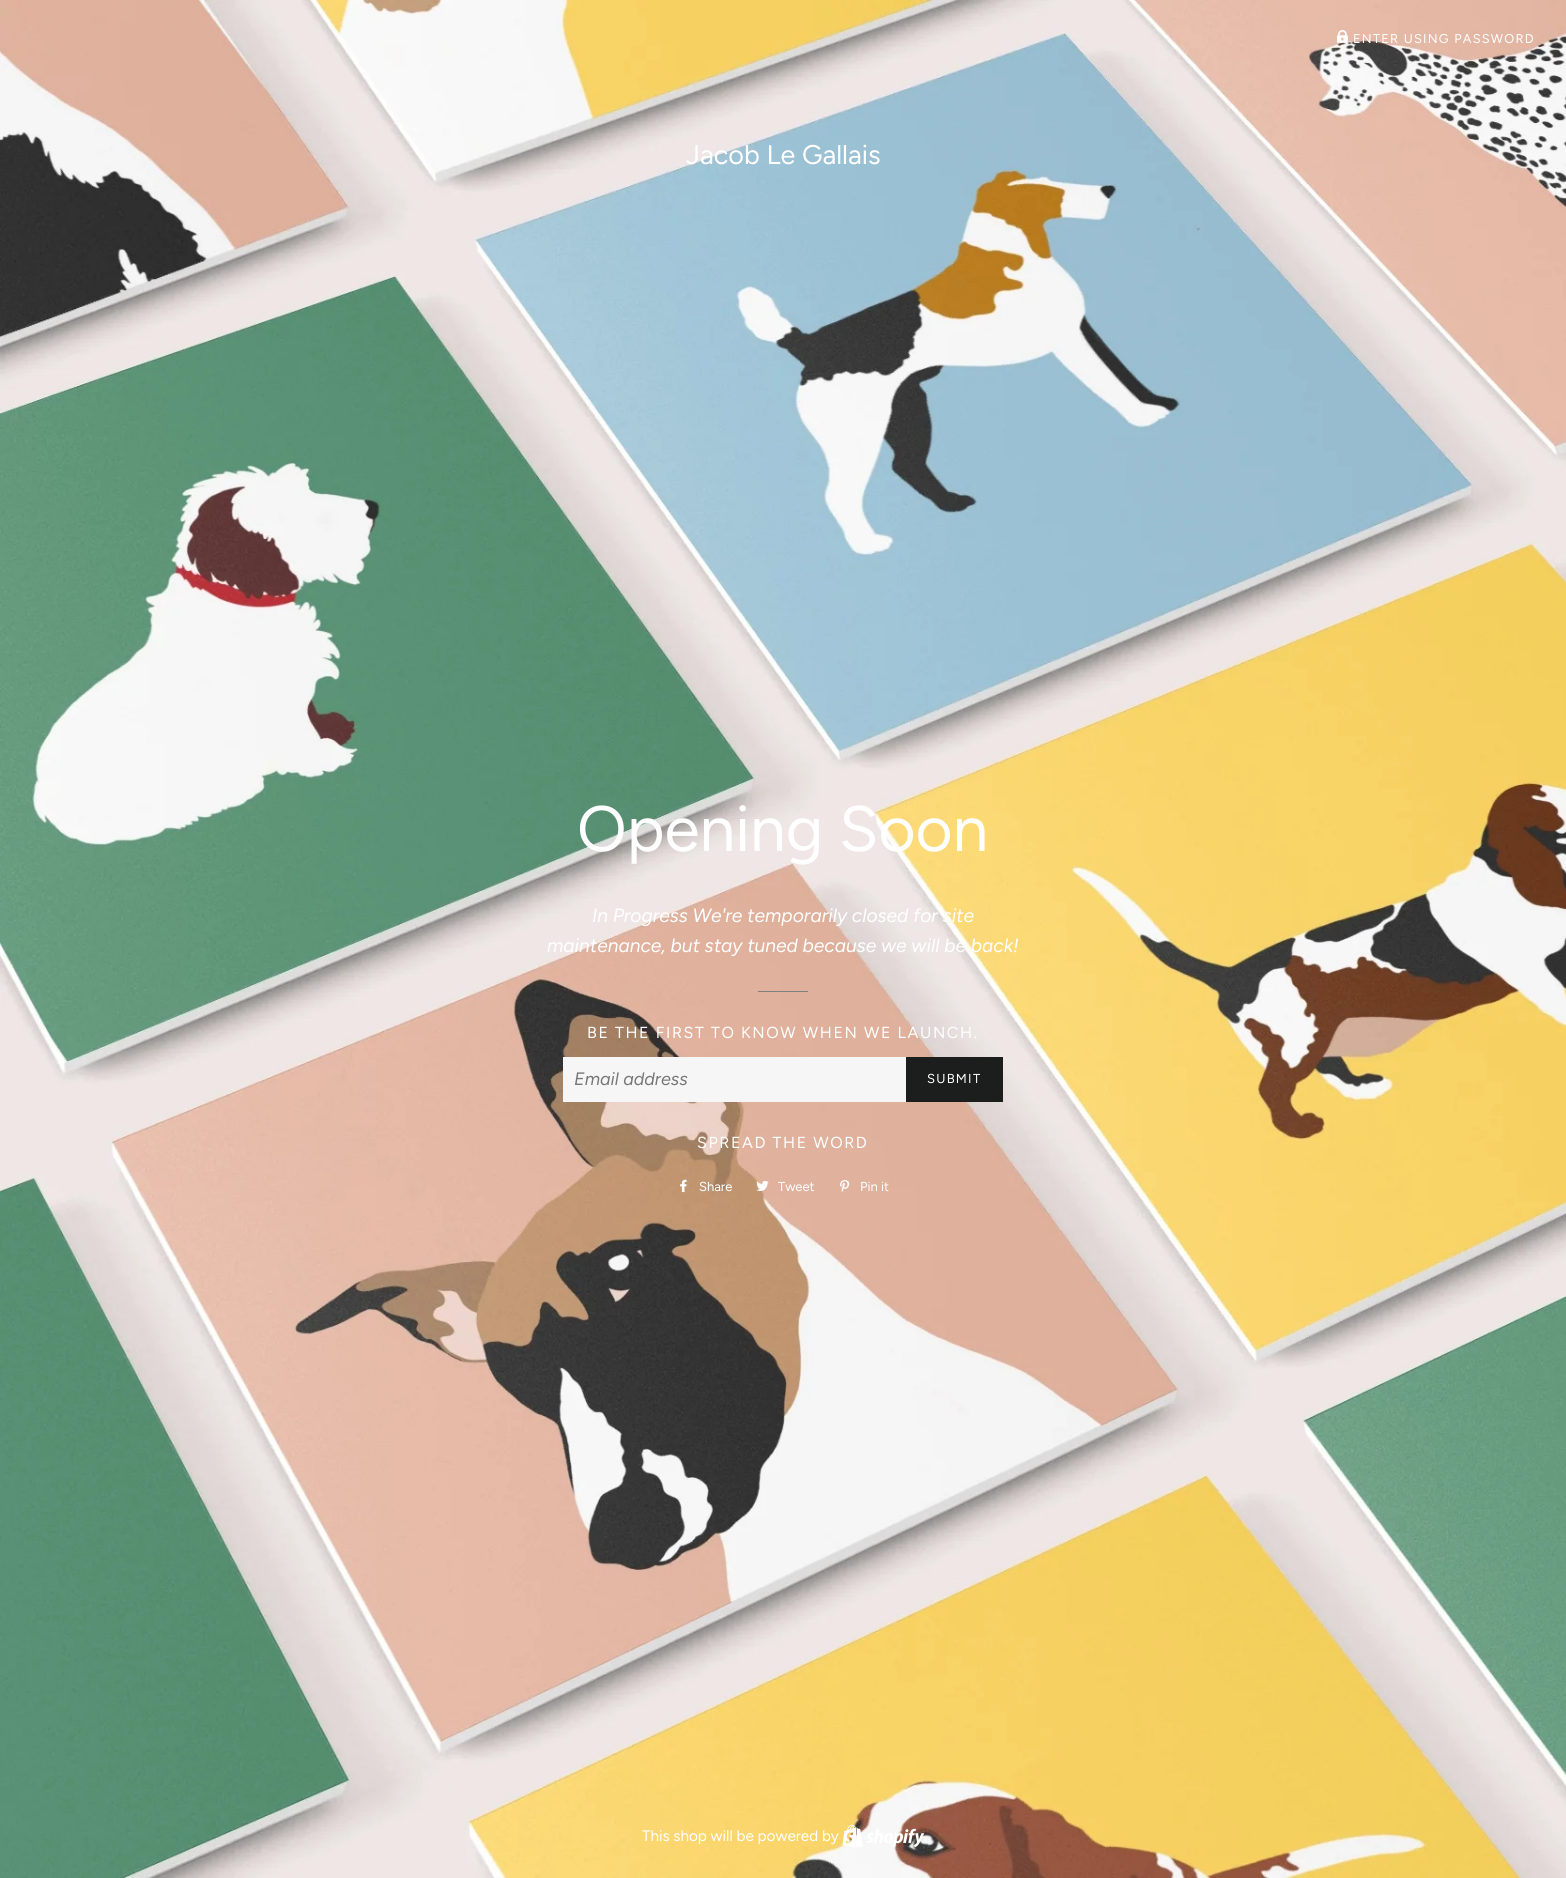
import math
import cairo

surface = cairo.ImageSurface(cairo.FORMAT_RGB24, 1566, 1878)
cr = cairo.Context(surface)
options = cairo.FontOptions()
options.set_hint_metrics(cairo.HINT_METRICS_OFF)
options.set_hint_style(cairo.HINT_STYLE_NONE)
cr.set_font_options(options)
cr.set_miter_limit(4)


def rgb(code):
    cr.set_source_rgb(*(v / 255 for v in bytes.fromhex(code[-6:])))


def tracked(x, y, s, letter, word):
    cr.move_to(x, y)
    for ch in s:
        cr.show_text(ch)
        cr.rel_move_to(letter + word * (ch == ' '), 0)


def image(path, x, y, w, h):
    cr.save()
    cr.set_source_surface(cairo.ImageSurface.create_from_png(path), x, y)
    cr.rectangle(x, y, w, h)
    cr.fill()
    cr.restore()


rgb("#ffffff")
cr.paint()
image("img/1.png", 0, 0, 1566, 1878)
image("img/2.png", 1337, 30, 11, 13)
for x, y, w, h, color in [
    (758, 991, 50, 1, "#808080"),
    (563, 1057, 343, 45, "#f6f6f6"),
    (906, 1057, 97, 45, "#1c1d1d"),
]:
    rgb(color)
    cr.rectangle(x, y, w, h)
    cr.fill()
image("img/3.png", 680, 1179, 7, 14)
image("img/4.png", 756, 1180, 13, 11)
image("img/5.png", 840, 1180, 10, 12)
image("img/6.png", 842, 1824, 82, 24)
cr.select_font_face("Figtree")
cr.set_font_size(12.75)
rgb("#ffffff")
tracked(1353, 43, "ENTER USING PASSWORD", 1.25, 0)
cr.set_font_size(27)
cr.move_to(686, 164)
cr.show_text("Jacob Le Gallais")
cr.set_font_size(64)
cr.move_to(577, 851)
cr.show_text("Opening Soon")
cr.select_font_face("Figtree", cairo.FONT_SLANT_ITALIC)
cr.set_font_size(19.2)
cr.move_to(592, 922)
cr.show_text("In Progress We're temporarily closed for site")
cr.move_to(547, 952)
cr.show_text("maintenance, but stay tuned because we will be back!")
cr.select_font_face("Figtree")
cr.set_font_size(16)
tracked(587, 1038, "BE THE FIRST TO KNOW WHEN WE LAUNCH.", 1.6, 0)
cr.select_font_face("Figtree", cairo.FONT_SLANT_ITALIC)
cr.set_font_size(18)
rgb("#777777")
cr.move_to(574, 1085)
cr.show_text("Email address")
cr.select_font_face("Figtree")
cr.set_font_size(13)
rgb("#ffffff")
tracked(927, 1083, "SUBMIT", 1.25, 0)
cr.set_font_size(16)
tracked(697, 1148, "SPREAD THE WORD", 1.6, 0)
cr.set_font_size(13)
for x, y, s in [
    (699, 1191, "Share"),
    (778, 1191, "Tweet"),
    (860, 1191, "Pin it"),
]:
    cr.move_to(x, y)
    cr.show_text(s)
cr.set_font_size(15.25)
cr.move_to(642, 1841)
cr.show_text("This shop will be powered by")
surface.write_to_png("page.png")
